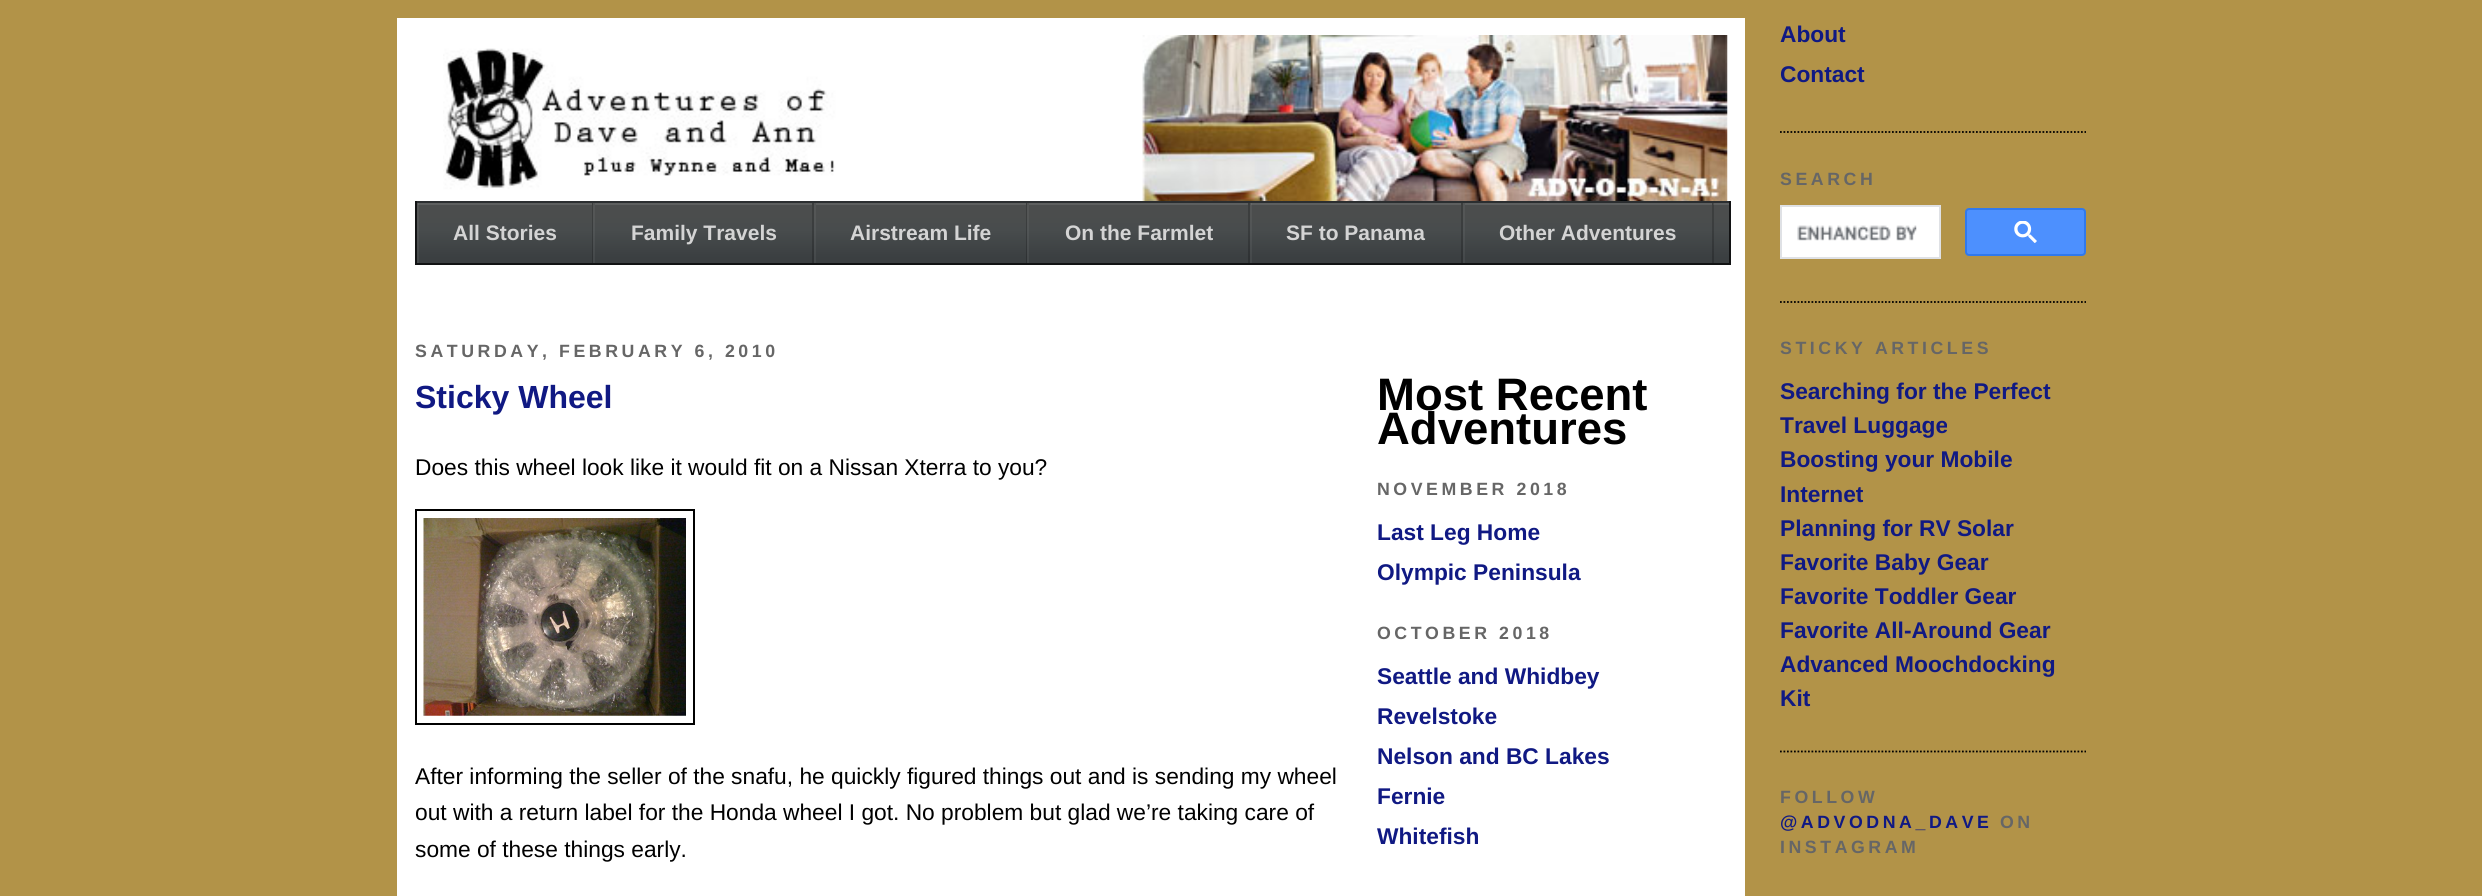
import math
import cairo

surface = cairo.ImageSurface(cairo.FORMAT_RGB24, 2482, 896)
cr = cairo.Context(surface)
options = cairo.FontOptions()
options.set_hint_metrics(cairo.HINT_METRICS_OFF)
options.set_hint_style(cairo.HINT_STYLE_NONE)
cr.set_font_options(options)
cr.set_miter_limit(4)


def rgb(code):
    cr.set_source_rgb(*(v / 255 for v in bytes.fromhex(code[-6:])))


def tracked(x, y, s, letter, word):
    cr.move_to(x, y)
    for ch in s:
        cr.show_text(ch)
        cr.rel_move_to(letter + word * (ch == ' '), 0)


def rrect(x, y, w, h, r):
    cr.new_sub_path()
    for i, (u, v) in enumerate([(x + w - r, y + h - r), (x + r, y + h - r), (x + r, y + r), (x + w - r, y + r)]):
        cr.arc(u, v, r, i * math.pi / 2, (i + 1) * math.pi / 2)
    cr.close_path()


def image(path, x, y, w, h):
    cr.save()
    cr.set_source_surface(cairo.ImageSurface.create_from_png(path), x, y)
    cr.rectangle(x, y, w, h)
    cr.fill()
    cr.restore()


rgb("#b29348")
cr.paint()
rgb("#ffffff")
cr.rectangle(397, 18, 1348, 878)
cr.fill()
image("img/1.png", 443, 35, 1285, 166)
gradient = cairo.LinearGradient(417, 263, 417, 203)
gradient.add_color_stop_rgba(0.09, 0.231, 0.247, 0.255, 1)
gradient.add_color_stop_rgba(0.55, 0.282, 0.298, 0.302, 1)
gradient.add_color_stop_rgba(0.78, 0.294, 0.302, 0.302, 1)
cr.set_source(gradient)
cr.rectangle(1714, 205, 15, 58)
cr.fill()
gradient = cairo.LinearGradient(417, 263, 417, 203)
gradient.add_color_stop_rgba(0.09, 0.184, 0.196, 0.204, 1)
gradient.add_color_stop_rgba(0.55, 0.227, 0.239, 0.243, 1)
gradient.add_color_stop_rgba(0.78, 0.235, 0.243, 0.243, 1)
cr.set_source(gradient)
cr.rectangle(1713, 203, 1, 60)
cr.fill()
for x, y, w, h, color in [
    (1714, 203, 15, 2, "#5d5f5f"),
    (1712, 203, 2, 2, "#4a4c4c"),
    (415, 201, 1316, 2, "#2b2e30"),
    (1729, 201, 2, 63, "#121314"),
    (415, 263, 1316, 2, "#121314"),
    (415, 201, 2, 63, "#121314"),
]:
    rgb(color)
    cr.rectangle(x, y, w, h)
    cr.fill()
gradient = cairo.LinearGradient(418, 263, 418, 203)
gradient.add_color_stop_rgba(0.09, 0.231, 0.247, 0.255, 1)
gradient.add_color_stop_rgba(0.55, 0.282, 0.298, 0.302, 1)
gradient.add_color_stop_rgba(0.78, 0.294, 0.302, 0.302, 1)
cr.set_source(gradient)
cr.rectangle(419, 205, 173, 58)
cr.fill()
gradient = cairo.LinearGradient(418, 263, 418, 203)
gradient.add_color_stop_rgba(0.09, 0.271, 0.286, 0.294, 1)
gradient.add_color_stop_rgba(0.55, 0.318, 0.333, 0.337, 1)
gradient.add_color_stop_rgba(0.78, 0.329, 0.337, 0.337, 1)
cr.set_source(gradient)
cr.rectangle(417, 203, 2, 60)
cr.fill()
gradient = cairo.LinearGradient(418, 263, 418, 203)
gradient.add_color_stop_rgba(0.09, 0.184, 0.196, 0.204, 1)
gradient.add_color_stop_rgba(0.55, 0.227, 0.239, 0.243, 1)
gradient.add_color_stop_rgba(0.78, 0.235, 0.243, 0.243, 1)
cr.set_source(gradient)
cr.rectangle(592, 203, 1, 60)
cr.fill()
rgb("#5d5f5f")
cr.rectangle(418, 203, 174, 2)
cr.fill()
rgb("#656767")
cr.rectangle(418, 203, 1, 2)
cr.fill()
gradient = cairo.LinearGradient(595, 263, 595, 203)
gradient.add_color_stop_rgba(0.09, 0.231, 0.247, 0.255, 1)
gradient.add_color_stop_rgba(0.55, 0.282, 0.298, 0.302, 1)
gradient.add_color_stop_rgba(0.78, 0.294, 0.302, 0.302, 1)
cr.set_source(gradient)
cr.rectangle(595, 205, 217, 58)
cr.fill()
gradient = cairo.LinearGradient(595, 263, 595, 203)
gradient.add_color_stop_rgba(0.09, 0.271, 0.286, 0.294, 1)
gradient.add_color_stop_rgba(0.55, 0.318, 0.333, 0.337, 1)
gradient.add_color_stop_rgba(0.78, 0.329, 0.337, 0.337, 1)
cr.set_source(gradient)
cr.rectangle(593, 203, 2, 60)
cr.fill()
gradient = cairo.LinearGradient(595, 263, 595, 203)
gradient.add_color_stop_rgba(0.09, 0.184, 0.196, 0.204, 1)
gradient.add_color_stop_rgba(0.55, 0.227, 0.239, 0.243, 1)
gradient.add_color_stop_rgba(0.78, 0.235, 0.243, 0.243, 1)
cr.set_source(gradient)
cr.rectangle(812, 203, 2, 60)
cr.fill()
rgb("#5d5f5f")
cr.rectangle(595, 203, 217, 2)
cr.fill()
gradient = cairo.LinearGradient(816, 263, 816, 203)
gradient.add_color_stop_rgba(0.09, 0.231, 0.247, 0.255, 1)
gradient.add_color_stop_rgba(0.55, 0.282, 0.298, 0.302, 1)
gradient.add_color_stop_rgba(0.78, 0.294, 0.302, 0.302, 1)
cr.set_source(gradient)
cr.rectangle(816, 205, 210, 58)
cr.fill()
gradient = cairo.LinearGradient(816, 263, 816, 203)
gradient.add_color_stop_rgba(0.09, 0.271, 0.286, 0.294, 1)
gradient.add_color_stop_rgba(0.55, 0.318, 0.333, 0.337, 1)
gradient.add_color_stop_rgba(0.78, 0.329, 0.337, 0.337, 1)
cr.set_source(gradient)
cr.rectangle(814, 203, 2, 60)
cr.fill()
gradient = cairo.LinearGradient(816, 263, 816, 203)
gradient.add_color_stop_rgba(0.09, 0.184, 0.196, 0.204, 1)
gradient.add_color_stop_rgba(0.55, 0.227, 0.239, 0.243, 1)
gradient.add_color_stop_rgba(0.78, 0.235, 0.243, 0.243, 1)
cr.set_source(gradient)
cr.rectangle(1026, 203, 1, 60)
cr.fill()
rgb("#5d5f5f")
cr.rectangle(816, 203, 210, 2)
cr.fill()
gradient = cairo.LinearGradient(1029, 263, 1029, 203)
gradient.add_color_stop_rgba(0.09, 0.231, 0.247, 0.255, 1)
gradient.add_color_stop_rgba(0.55, 0.282, 0.298, 0.302, 1)
gradient.add_color_stop_rgba(0.78, 0.294, 0.302, 0.302, 1)
cr.set_source(gradient)
cr.rectangle(1029, 205, 219, 58)
cr.fill()
gradient = cairo.LinearGradient(1029, 263, 1029, 203)
gradient.add_color_stop_rgba(0.09, 0.271, 0.286, 0.294, 1)
gradient.add_color_stop_rgba(0.55, 0.318, 0.333, 0.337, 1)
gradient.add_color_stop_rgba(0.78, 0.329, 0.337, 0.337, 1)
cr.set_source(gradient)
cr.rectangle(1027, 203, 2, 60)
cr.fill()
gradient = cairo.LinearGradient(1029, 263, 1029, 203)
gradient.add_color_stop_rgba(0.09, 0.184, 0.196, 0.204, 1)
gradient.add_color_stop_rgba(0.55, 0.227, 0.239, 0.243, 1)
gradient.add_color_stop_rgba(0.78, 0.235, 0.243, 0.243, 1)
cr.set_source(gradient)
cr.rectangle(1248, 203, 2, 60)
cr.fill()
rgb("#5d5f5f")
cr.rectangle(1029, 203, 219, 2)
cr.fill()
gradient = cairo.LinearGradient(1251, 263, 1251, 203)
gradient.add_color_stop_rgba(0.09, 0.231, 0.247, 0.255, 1)
gradient.add_color_stop_rgba(0.55, 0.282, 0.298, 0.302, 1)
gradient.add_color_stop_rgba(0.78, 0.294, 0.302, 0.302, 1)
cr.set_source(gradient)
cr.rectangle(1252, 205, 209, 58)
cr.fill()
gradient = cairo.LinearGradient(1251, 263, 1251, 203)
gradient.add_color_stop_rgba(0.09, 0.271, 0.286, 0.294, 1)
gradient.add_color_stop_rgba(0.55, 0.318, 0.333, 0.337, 1)
gradient.add_color_stop_rgba(0.78, 0.329, 0.337, 0.337, 1)
cr.set_source(gradient)
cr.rectangle(1250, 203, 2, 60)
cr.fill()
gradient = cairo.LinearGradient(1251, 263, 1251, 203)
gradient.add_color_stop_rgba(0.09, 0.184, 0.196, 0.204, 1)
gradient.add_color_stop_rgba(0.55, 0.227, 0.239, 0.243, 1)
gradient.add_color_stop_rgba(0.78, 0.235, 0.243, 0.243, 1)
cr.set_source(gradient)
cr.rectangle(1461, 203, 2, 60)
cr.fill()
rgb("#5d5f5f")
cr.rectangle(1251, 203, 210, 2)
cr.fill()
rgb("#656767")
cr.rectangle(1251, 203, 1, 2)
cr.fill()
gradient = cairo.LinearGradient(1465, 263, 1465, 203)
gradient.add_color_stop_rgba(0.09, 0.231, 0.247, 0.255, 1)
gradient.add_color_stop_rgba(0.55, 0.282, 0.298, 0.302, 1)
gradient.add_color_stop_rgba(0.78, 0.294, 0.302, 0.302, 1)
cr.set_source(gradient)
cr.rectangle(1465, 205, 247, 58)
cr.fill()
gradient = cairo.LinearGradient(1465, 263, 1465, 203)
gradient.add_color_stop_rgba(0.09, 0.271, 0.286, 0.294, 1)
gradient.add_color_stop_rgba(0.55, 0.318, 0.333, 0.337, 1)
gradient.add_color_stop_rgba(0.78, 0.329, 0.337, 0.337, 1)
cr.set_source(gradient)
cr.rectangle(1463, 203, 2, 60)
cr.fill()
gradient = cairo.LinearGradient(1465, 263, 1465, 203)
gradient.add_color_stop_rgba(0.09, 0.184, 0.196, 0.204, 1)
gradient.add_color_stop_rgba(0.55, 0.227, 0.239, 0.243, 1)
gradient.add_color_stop_rgba(0.78, 0.235, 0.243, 0.243, 1)
cr.set_source(gradient)
cr.rectangle(1712, 203, 1, 60)
cr.fill()
rgb("#5d5f5f")
cr.rectangle(1465, 203, 247, 2)
cr.fill()
cr.rectangle(416, 510, 278, 214)
rgb("#000000")
cr.stroke()
image("img/2.png", 423, 518, 263, 198)
cr.new_path()
cr.move_to(1780, 132)
cr.line_to(2086, 132)
cr.set_line_width(1.8)
cr.set_dash([1.75, 1.75])
cr.stroke()
cr.new_path()
cr.move_to(1780, 302)
cr.line_to(2086, 302)
cr.stroke()
rgb("#ffffff")
cr.rectangle(1781, 206, 159, 52)
cr.fill_preserve()
rgb("#dfe1e5")
cr.set_line_width(2)
cr.set_dash([])
cr.stroke()
image("img/3.png", 1797, 225, 120, 16)
rgb("#4d90fe")
rrect(1966, 209, 119, 46, 3)
cr.fill_preserve()
rgb("#3079ed")
cr.stroke()
image("img/4.png", 2014, 221, 23, 22)
cr.new_path()
cr.move_to(1780, 751.5)
cr.line_to(2086, 751.5)
rgb("#000000")
cr.set_line_width(1.8)
cr.set_dash([1.75, 1.75])
cr.stroke()
cr.select_font_face("Liberation Sans", cairo.FONT_SLANT_NORMAL, cairo.FONT_WEIGHT_BOLD)
cr.set_font_size(21)
rgb("#d4d4d4")
for x, y, s in [
    (453, 240, "All Stories"),
    (631, 240, "Family Travels"),
    (850, 240, "Airstream Life"),
    (1065, 240, "On the Farmlet"),
    (1286, 240, "SF to Panama"),
    (1499, 240, "Other Adventures"),
]:
    cr.move_to(x, y)
    cr.show_text(s)
cr.set_font_size(17.75)
rgb("#666666")
tracked(415, 357, "SATURDAY, FEBRUARY 6, 2010", 3.55, 0)
cr.set_font_size(32)
rgb("#101983")
cr.move_to(415, 408)
cr.show_text("Sticky Wheel")
cr.select_font_face("Liberation Sans")
cr.set_font_size(22.75)
rgb("#000000")
for x, y, s in [
    (415, 475, "Does this wheel look like it would fit on a Nissan Xterra to you?"),
    (415, 784, "After informing the seller of the snafu, he quickly figured things out and is sending my wheel"),
    (415, 820, "out with a return label for the Honda wheel I got. No problem but glad we’re taking care of"),
    (415, 857, "some of these things early."),
]:
    cr.move_to(x, y)
    cr.show_text(s)
cr.select_font_face("Liberation Sans", cairo.FONT_SLANT_NORMAL, cairo.FONT_WEIGHT_BOLD)
cr.set_font_size(45.5)
cr.move_to(1377, 410)
cr.show_text("Most Recent")
cr.move_to(1377, 444)
cr.show_text("Adventures")
cr.set_font_size(17.75)
rgb("#666666")
tracked(1377, 495, "NOVEMBER 2018", 3.55, 0)
cr.set_font_size(22.75)
rgb("#101983")
cr.move_to(1377, 540)
cr.show_text("Last Leg Home")
cr.move_to(1377, 580)
cr.show_text("Olympic Peninsula")
cr.set_font_size(17.75)
rgb("#666666")
tracked(1377, 639, "OCTOBER 2018", 3.55, 0)
cr.set_font_size(22.75)
rgb("#101983")
for x, y, s in [
    (1377, 684, "Seattle and Whidbey"),
    (1377, 724, "Revelstoke"),
    (1377, 764, "Nelson and BC Lakes"),
    (1377, 804, "Fernie"),
    (1377, 844, "Whitefish"),
    (1780, 42, "About"),
    (1780, 82, "Contact"),
]:
    cr.move_to(x, y)
    cr.show_text(s)
cr.set_font_size(17.75)
rgb("#666666")
tracked(1780, 185, "SEARCH", 3.55, 0)
tracked(1780, 354, "STICKY ARTICLES", 3.55, 0)
cr.set_font_size(22.75)
rgb("#101983")
for x, y, s in [
    (1780, 399, "Searching for the Perfect"),
    (1780, 433, "Travel Luggage"),
    (1780, 467, "Boosting your Mobile"),
    (1780, 502, "Internet"),
    (1780, 536, "Planning for RV Solar"),
    (1780, 570, "Favorite Baby Gear"),
    (1780, 604, "Favorite Toddler Gear"),
    (1780, 638, "Favorite All-Around Gear"),
    (1780, 672, "Advanced Moochdocking"),
    (1780, 706, "Kit"),
]:
    cr.move_to(x, y)
    cr.show_text(s)
cr.set_font_size(17.75)
rgb("#666666")
tracked(1780, 803, "FOLLOW", 3.55, 0)
rgb("#101983")
tracked(1780, 828, "@ADVODNA_DAVE", 3.55, 0)
rgb("#666666")
tracked(2000, 828, "ON", 3.55, 0)
tracked(1780, 853, "INSTAGRAM", 3.55, 0)
surface.write_to_png("page.png")
